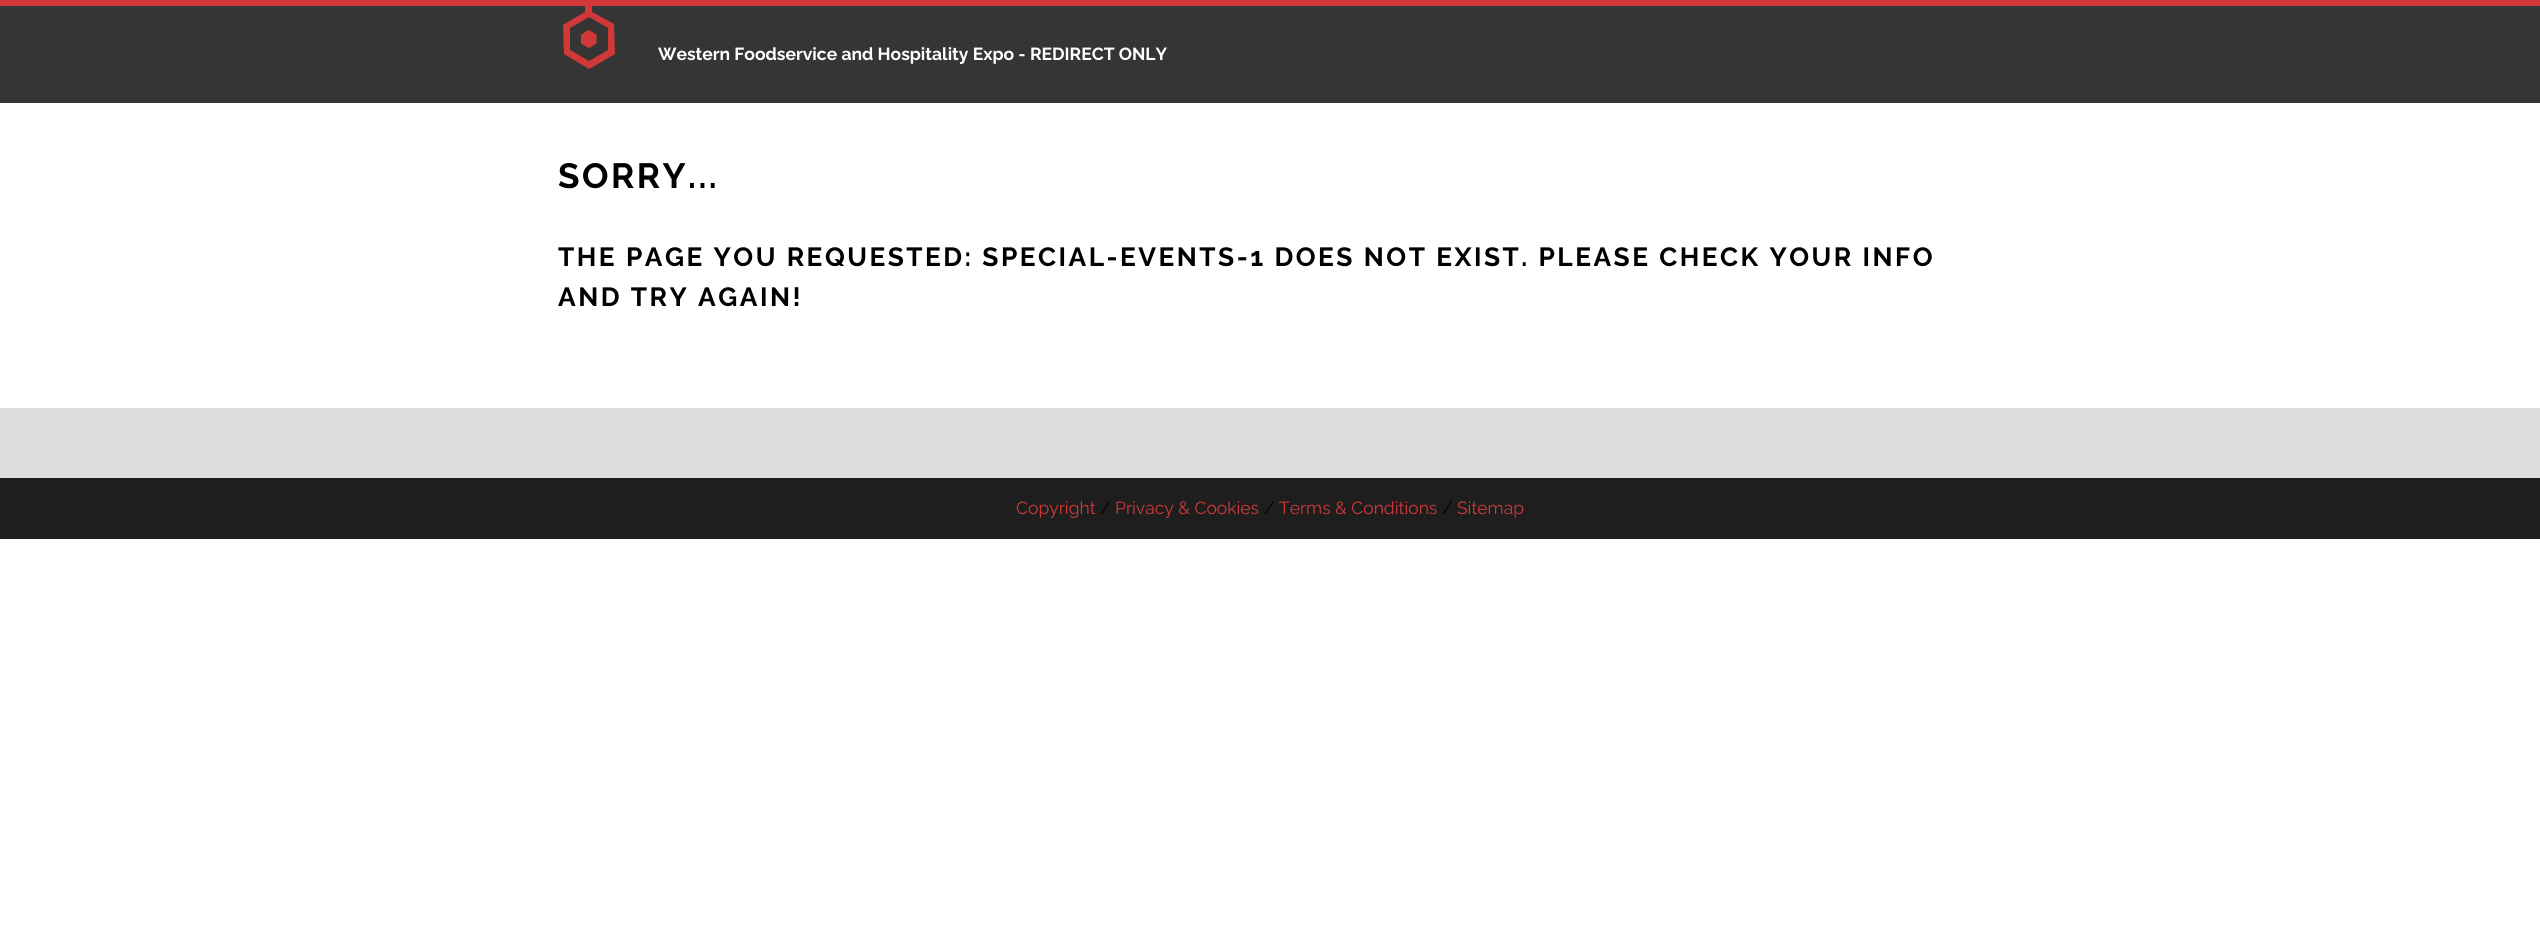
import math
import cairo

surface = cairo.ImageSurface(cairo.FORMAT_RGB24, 2540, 944)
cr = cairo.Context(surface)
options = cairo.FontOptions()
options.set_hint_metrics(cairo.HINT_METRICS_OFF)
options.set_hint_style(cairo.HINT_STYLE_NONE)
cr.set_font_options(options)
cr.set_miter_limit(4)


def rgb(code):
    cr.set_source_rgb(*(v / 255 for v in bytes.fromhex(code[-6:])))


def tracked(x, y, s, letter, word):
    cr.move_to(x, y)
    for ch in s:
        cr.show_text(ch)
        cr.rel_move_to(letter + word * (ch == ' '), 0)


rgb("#ffffff")
cr.paint()
rgb("#353535")
cr.rectangle(0, 6, 2540, 97)
cr.fill()
rgb("#d23838")
cr.rectangle(0, 0, 2540, 6)
cr.fill()
cr.new_path()
cr.move_to(589, 69)
cr.line_to(615, 54)
cr.line_to(614, 24)
cr.line_to(592, 12)
cr.line_to(592, 6)
cr.line_to(585, 6)
cr.line_to(585, 12)
cr.line_to(563, 25)
cr.line_to(564, 54)
cr.close_path()
cr.move_to(589, 17)
cr.line_to(608, 28)
cr.line_to(608, 50)
cr.line_to(589, 61)
cr.line_to(570, 50)
cr.line_to(570, 28)
cr.close_path()
cr.fill()
cr.new_path()
cr.move_to(589, 48)
cr.line_to(596.5, 43.5)
cr.line_to(596.5, 34.5)
cr.line_to(588.5, 30)
cr.line_to(581, 34.5)
cr.line_to(581, 43.5)
cr.close_path()
cr.fill()
rgb("#dddddd")
cr.rectangle(0, 408, 2540, 70)
cr.fill()
rgb("#1e1e1e")
cr.rectangle(0, 478, 2540, 61)
cr.fill()
cr.select_font_face("Raleway", cairo.FONT_SLANT_NORMAL, cairo.FONT_WEIGHT_BOLD)
cr.set_font_size(17.5)
rgb("#ffffff")
cr.move_to(658, 60)
cr.show_text("Western Foodservice and Hospitality Expo - REDIRECT ONLY")
cr.set_font_size(35)
rgb("#000000")
tracked(558, 188, "SORRY...", 2.5, 0)
cr.set_font_size(26.25)
tracked(558, 266, "THE PAGE YOU REQUESTED: SPECIAL-EVENTS-1 DOES NOT EXIST. PLEASE CHECK YOUR INFO", 2.5, 0)
tracked(558, 306, "AND TRY AGAIN!", 2.5, 0)
cr.select_font_face("Raleway")
cr.set_font_size(17.5)
rgb("#d23838")
cr.move_to(1016, 514)
cr.show_text("Copyright")
rgb("#000000")
cr.move_to(1100, 514)
cr.show_text("/")
rgb("#d23838")
cr.move_to(1115, 514)
cr.show_text("Privacy & Cookies")
rgb("#000000")
cr.move_to(1264, 514)
cr.show_text("/")
rgb("#d23838")
cr.move_to(1279, 514)
cr.show_text("Terms & Conditions")
rgb("#000000")
cr.move_to(1442, 514)
cr.show_text("/")
rgb("#d23838")
cr.move_to(1457, 514)
cr.show_text("Sitemap")
surface.write_to_png("page.png")
